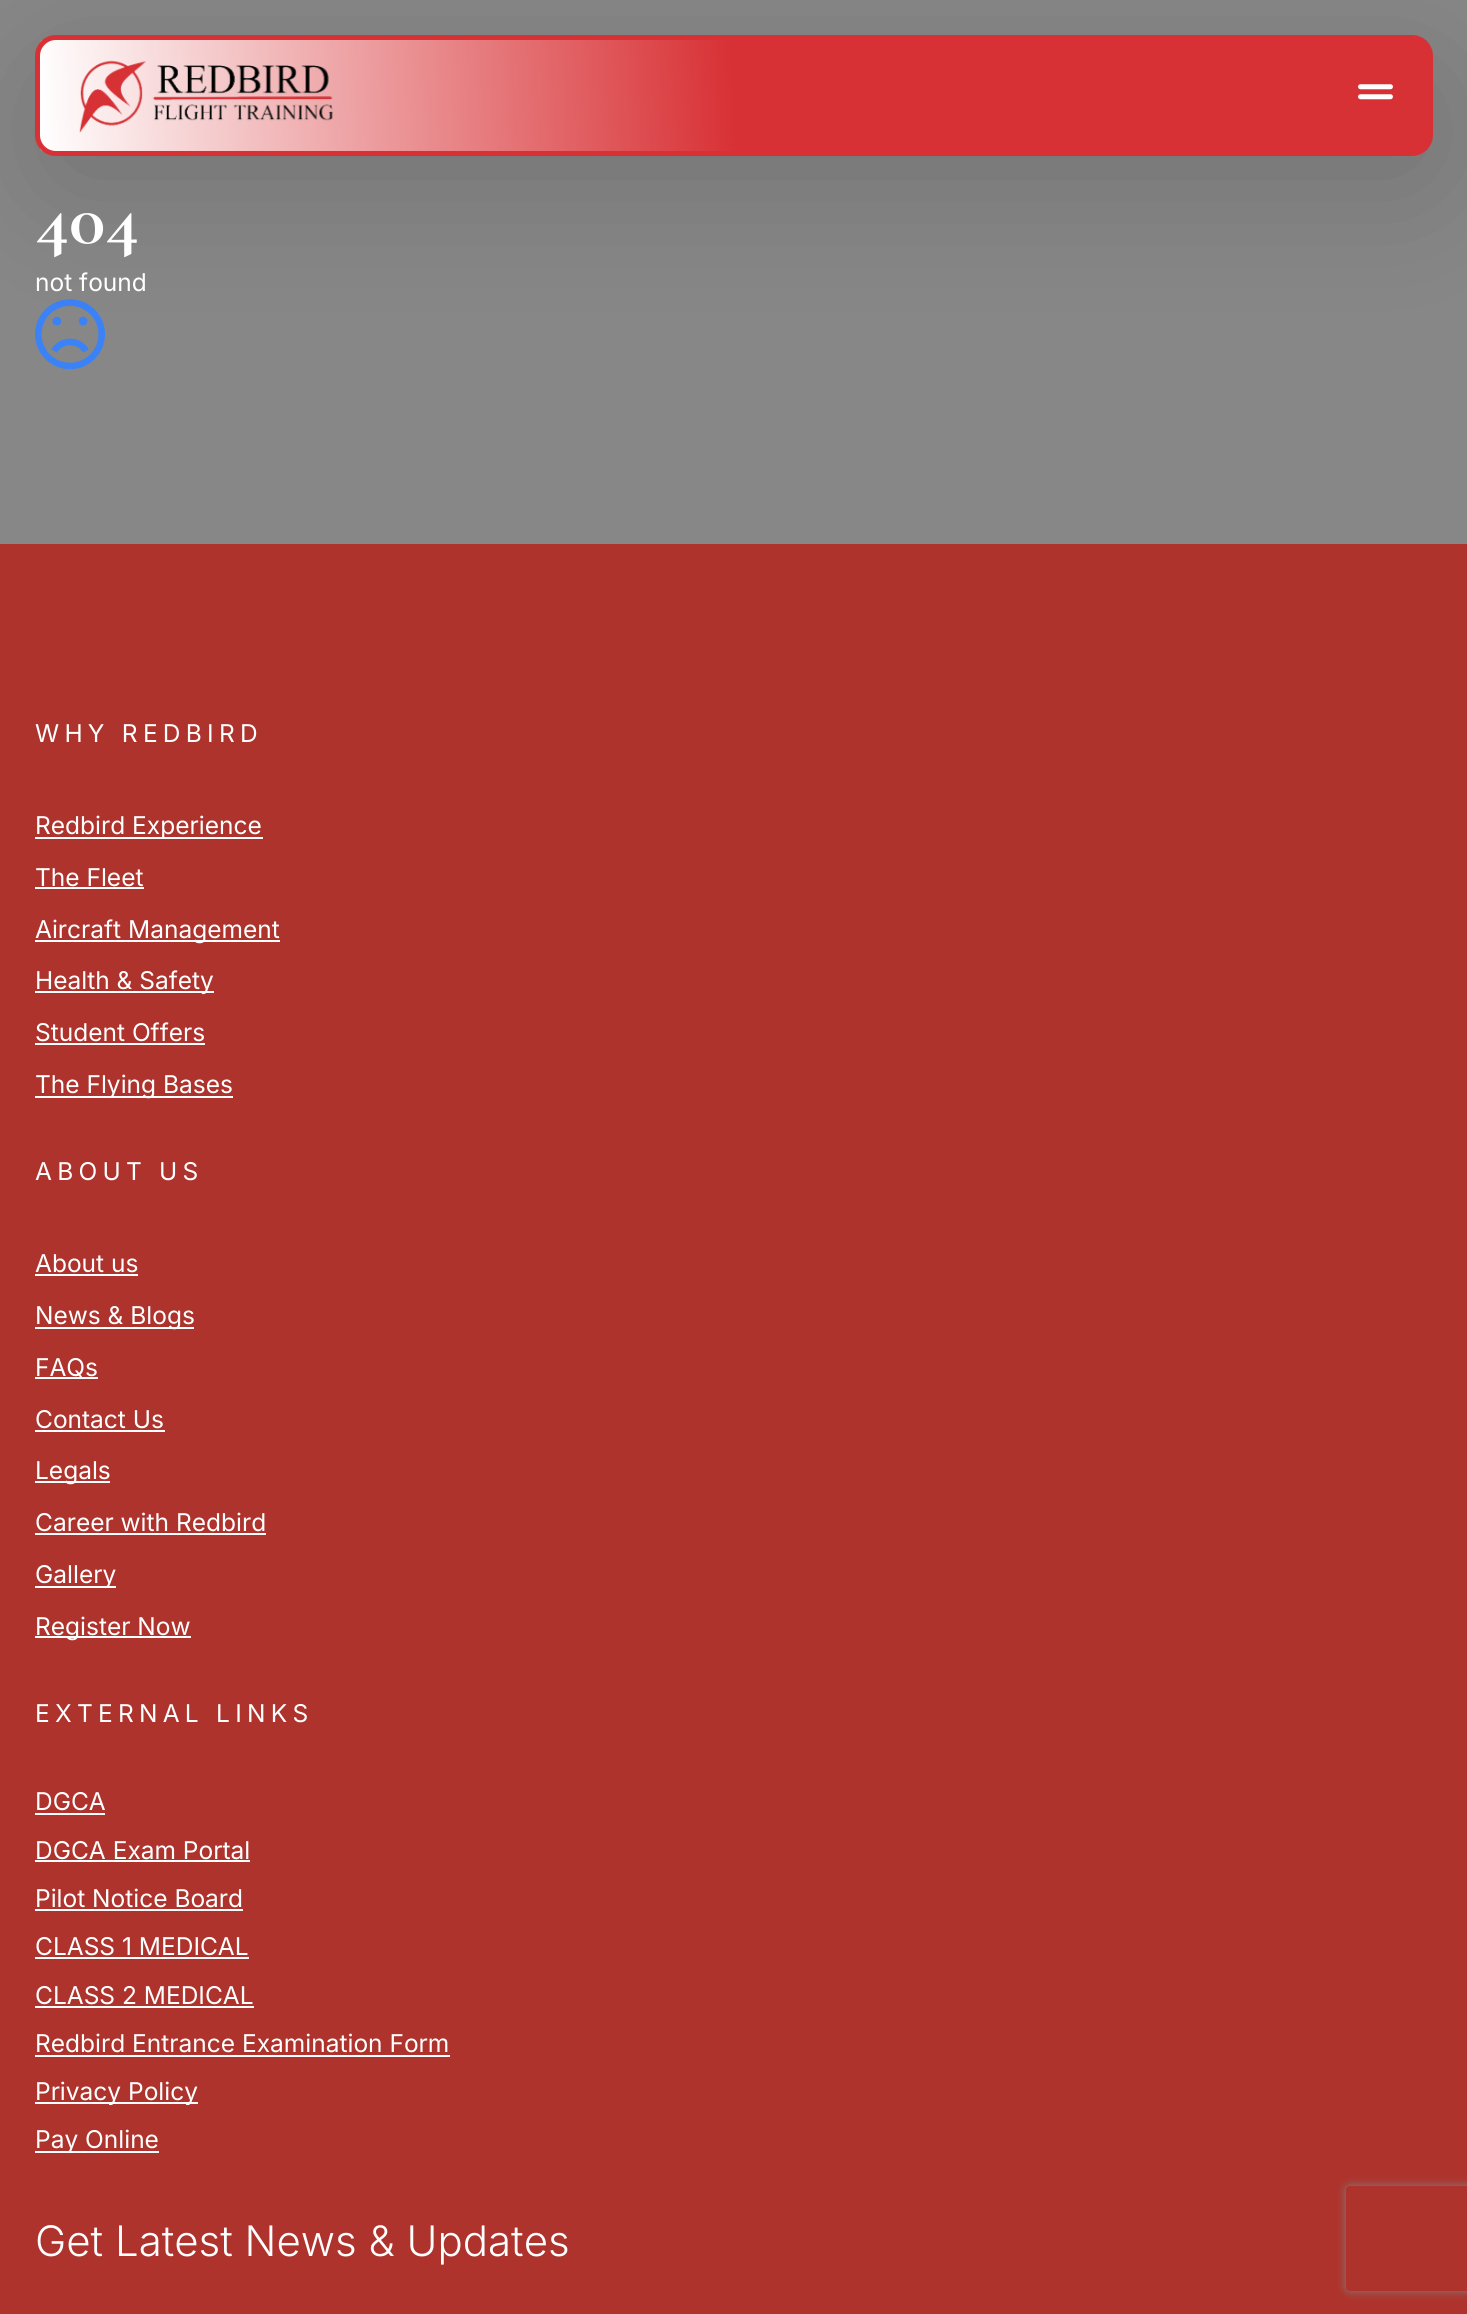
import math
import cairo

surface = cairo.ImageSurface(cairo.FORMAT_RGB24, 1467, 2314)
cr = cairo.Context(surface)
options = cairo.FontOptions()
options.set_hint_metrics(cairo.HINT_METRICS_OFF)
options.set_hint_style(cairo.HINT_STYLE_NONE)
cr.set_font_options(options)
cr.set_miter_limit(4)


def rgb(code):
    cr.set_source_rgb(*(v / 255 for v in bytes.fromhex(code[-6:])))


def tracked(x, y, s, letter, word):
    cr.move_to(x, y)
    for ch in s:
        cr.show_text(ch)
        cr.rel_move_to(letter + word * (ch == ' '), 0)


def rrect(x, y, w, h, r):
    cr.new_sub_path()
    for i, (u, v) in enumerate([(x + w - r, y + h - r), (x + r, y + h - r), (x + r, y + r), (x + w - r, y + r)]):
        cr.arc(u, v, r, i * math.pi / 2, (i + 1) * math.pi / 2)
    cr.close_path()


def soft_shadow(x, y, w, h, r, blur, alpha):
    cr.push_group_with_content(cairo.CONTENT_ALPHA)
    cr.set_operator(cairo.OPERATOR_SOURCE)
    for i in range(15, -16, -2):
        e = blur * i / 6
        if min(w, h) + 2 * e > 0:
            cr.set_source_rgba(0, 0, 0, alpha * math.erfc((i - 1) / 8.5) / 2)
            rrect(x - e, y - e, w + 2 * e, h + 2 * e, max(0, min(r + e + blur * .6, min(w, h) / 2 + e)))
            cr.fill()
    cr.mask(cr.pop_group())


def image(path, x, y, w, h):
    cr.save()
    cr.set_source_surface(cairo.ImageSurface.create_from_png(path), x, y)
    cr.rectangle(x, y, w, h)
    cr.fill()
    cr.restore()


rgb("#878787")
cr.paint()
image("img/3.png", 35, 299, 70, 70)
rgb("#000000")
soft_shadow(44, 70, 1398, 121, 21, 65.5, 0.14)
cr.save()
rrect(35, 35, 1398, 121, 21)
cr.clip()
gradient = cairo.LinearGradient(39, 132, 1429, 59)
gradient.add_color_stop_rgba(0, 1, 1, 1, 1)
gradient.add_color_stop_rgba(0.5, 0.847, 0.192, 0.208, 1)
cr.set_source(gradient)
cr.rectangle(40, 40, 1388, 111)
cr.fill()
cr.restore()
rrect(37.5, 37.5, 1393, 116, 18.5)
rgb("#d83135")
cr.set_line_width(5)
cr.stroke()
image("img/1.png", 79, 60, 255, 73)
image("img/2.png", 1358, 84, 35, 16)
for x, y, w, h, color in [
    (0, 544, 1467, 1770, "#ad332c"),
    (35, 837, 228, 2, "#ffffff"),
    (35, 887, 109, 2, "#ffffff"),
    (35, 940, 245, 2, "#ffffff"),
    (35, 991, 179, 2, "#ffffff"),
    (35, 1043, 170, 2, "#ffffff"),
    (35, 1096, 198, 2, "#ffffff"),
    (35, 1274, 103, 2, "#ffffff"),
    (35, 1327, 159, 2, "#ffffff"),
    (35, 1377, 63, 2, "#ffffff"),
    (35, 1430, 130, 2, "#ffffff"),
    (35, 1481, 75, 2, "#ffffff"),
    (35, 1533, 231, 2, "#ffffff"),
    (35, 1586, 81, 2, "#ffffff"),
    (35, 1636, 156, 2, "#ffffff"),
    (35, 1813, 70, 2, "#ffffff"),
    (35, 1860, 215, 2, "#ffffff"),
    (35, 1909, 208, 2, "#ffffff"),
    (35, 1957, 214, 2, "#ffffff"),
    (35, 2006, 219, 2, "#ffffff"),
    (35, 2055, 415, 2, "#ffffff"),
    (35, 2102, 163, 2, "#ffffff"),
    (35, 2151, 124, 2, "#ffffff"),
]:
    rgb(color)
    cr.rectangle(x, y, w, h)
    cr.fill()
cr.save()
cr.set_fill_rule(cairo.FILL_RULE_EVEN_ODD)
cr.new_path()
cr.move_to(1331, 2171)
cr.line_to(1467, 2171)
cr.line_to(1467, 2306)
cr.line_to(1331, 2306)
cr.close_path()
cr.move_to(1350, 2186)
cr.line_to(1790, 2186)
cr.curve_to(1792, 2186, 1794, 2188, 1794, 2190)
cr.line_to(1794, 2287)
cr.curve_to(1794, 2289, 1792, 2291, 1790, 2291)
cr.line_to(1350, 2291)
cr.curve_to(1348, 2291, 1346, 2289, 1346, 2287)
cr.line_to(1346, 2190)
cr.curve_to(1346, 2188, 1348, 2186, 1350, 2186)
cr.close_path()
cr.clip()
rgb("#808080")
soft_shadow(1346, 2186, 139, 105, 4, 4.5, 1)
cr.restore()
cr.select_font_face("Cormorant", cairo.FONT_SLANT_NORMAL, cairo.FONT_WEIGHT_BOLD)
cr.set_font_size(75)
cr.move_to(35, 243)
cr.show_text("404")
cr.select_font_face("Inter")
cr.set_font_size(24.5)
cr.move_to(35, 291)
cr.show_text("not found")
tracked(35, 742, "WHY REDBIRD", 5.25, 0)
for x, y, s in [
    (35, 834, "Redbird Experience"),
    (35, 886, "The Fleet"),
    (35, 938, "Aircraft Management"),
    (35, 989, "Health & Safety"),
    (35, 1041, "Student Offers"),
    (35, 1093, "The Flying Bases"),
]:
    cr.move_to(x, y)
    cr.show_text(s)
tracked(35, 1180, "ABOUT US", 5.25, 0)
for x, y, s in [
    (35, 1272, "About us"),
    (35, 1324, "News & Blogs"),
    (35, 1376, "FAQs"),
    (35, 1428, "Contact Us"),
    (35, 1479, "Legals"),
    (35, 1531, "Career with Redbird"),
    (35, 1583, "Gallery"),
    (35, 1635, "Register Now"),
]:
    cr.move_to(x, y)
    cr.show_text(s)
tracked(35, 1722, "EXTERNAL LINKS", 5.25, 0)
for x, y, s in [
    (35, 1810, "DGCA"),
    (35, 1859, "DGCA Exam Portal"),
    (35, 1907, "Pilot Notice Board"),
    (35, 1955, "CLASS 1 MEDICAL"),
    (35, 2004, "CLASS 2 MEDICAL"),
    (35, 2052, "Redbird Entrance Examination Form"),
    (35, 2100, "Privacy Policy"),
    (35, 2148, "Pay Online"),
]:
    cr.move_to(x, y)
    cr.show_text(s)
cr.select_font_face("Inter Light")
cr.set_font_size(42)
cr.move_to(35, 2256)
cr.show_text("Get Latest News & Updates")
surface.write_to_png("page.png")
